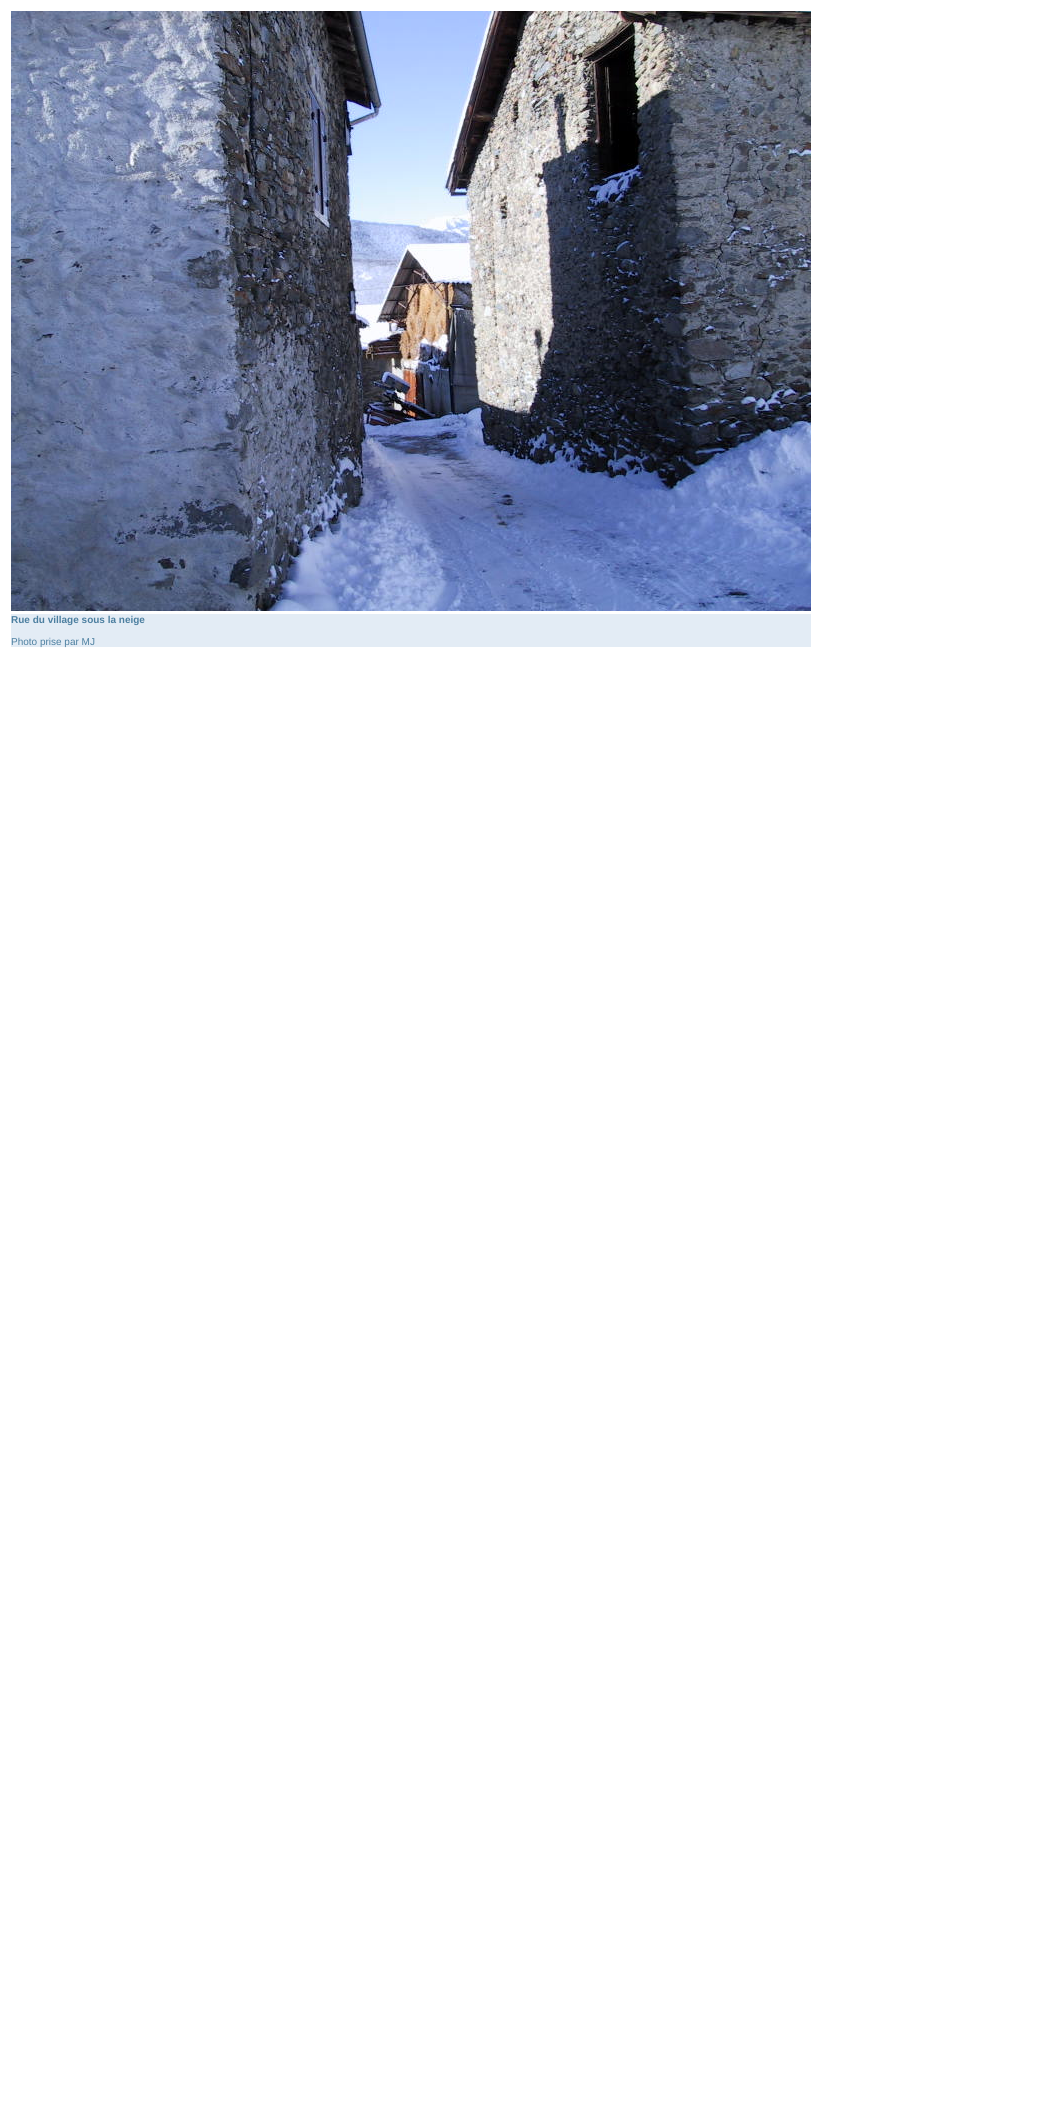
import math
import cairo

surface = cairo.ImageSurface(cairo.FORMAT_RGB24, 1040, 2103)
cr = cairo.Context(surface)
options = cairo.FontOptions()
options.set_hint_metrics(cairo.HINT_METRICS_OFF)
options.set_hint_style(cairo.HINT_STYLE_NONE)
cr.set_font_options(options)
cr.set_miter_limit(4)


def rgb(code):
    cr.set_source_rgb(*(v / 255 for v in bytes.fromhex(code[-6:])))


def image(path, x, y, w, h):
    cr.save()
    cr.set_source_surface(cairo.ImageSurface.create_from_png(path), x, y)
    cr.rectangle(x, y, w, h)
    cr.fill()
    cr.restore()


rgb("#ffffff")
cr.paint()
image("img/1.png", 11, 11, 800, 600)
rgb("#e3ecf5")
cr.rectangle(11, 614, 800, 33)
cr.fill()
cr.select_font_face("Liberation Sans", cairo.FONT_SLANT_NORMAL, cairo.FONT_WEIGHT_BOLD)
cr.set_font_size(10)
rgb("#4c7fa0")
cr.move_to(11, 623)
cr.show_text("Rue du village sous la neige")
cr.select_font_face("Liberation Sans")
cr.move_to(11, 645)
cr.show_text("Photo prise par MJ")
surface.write_to_png("page.png")
